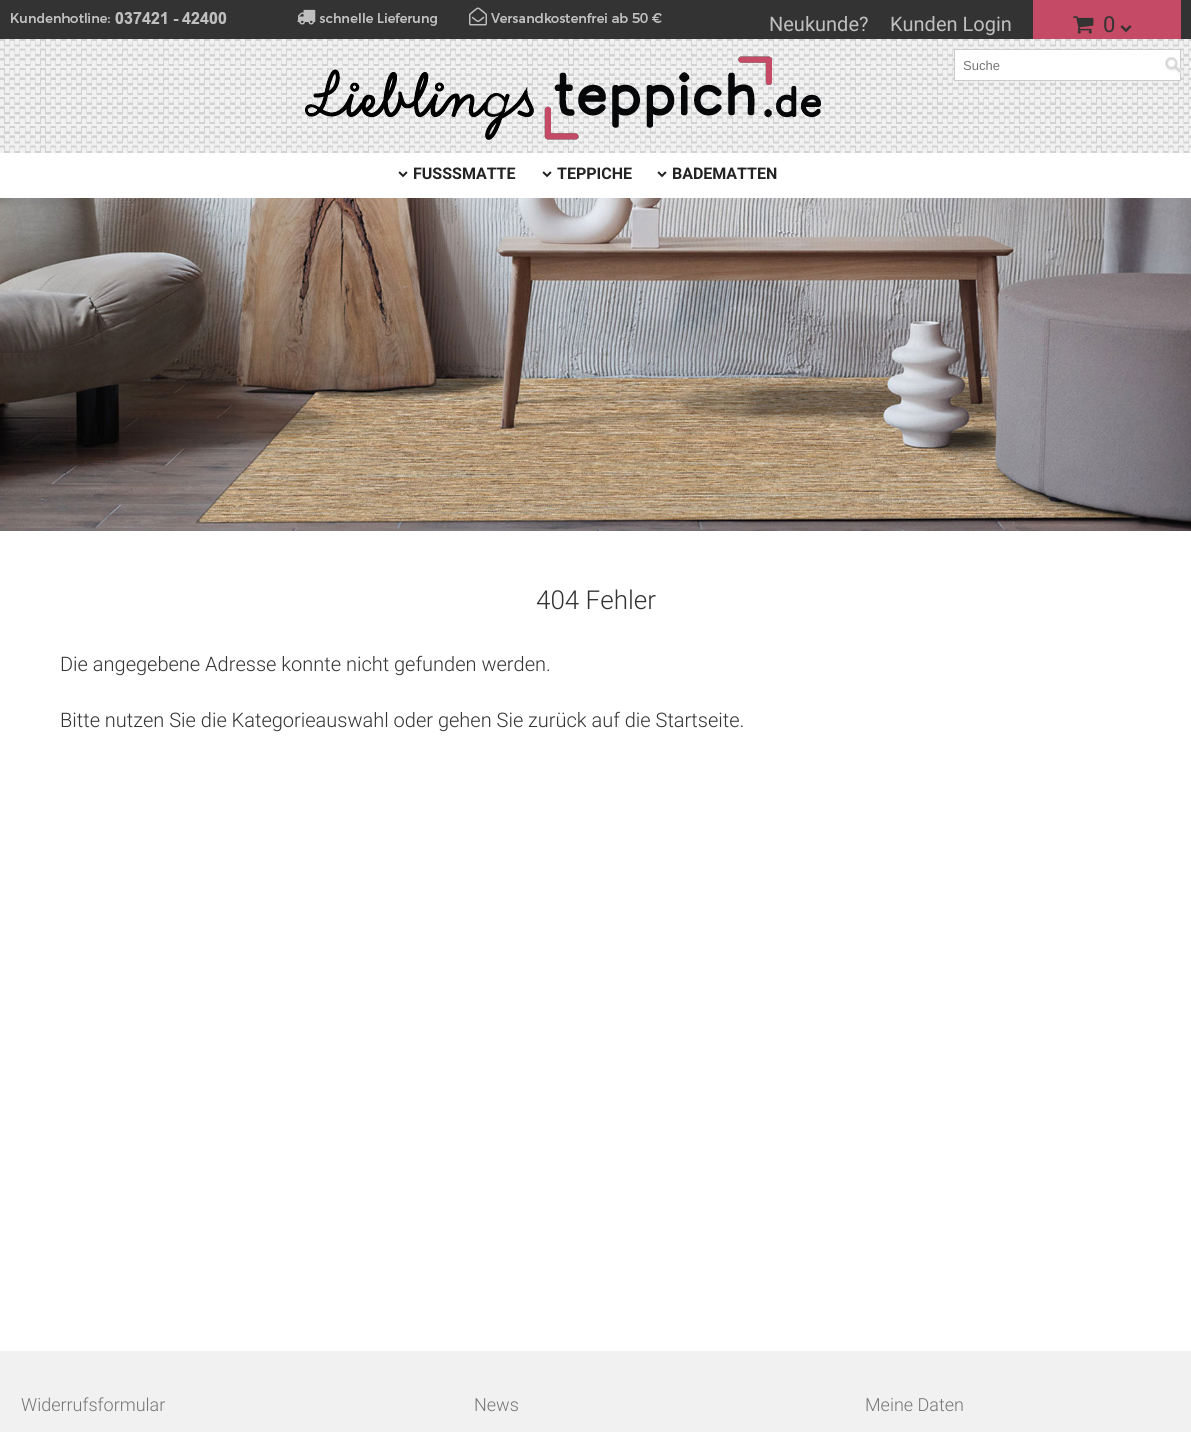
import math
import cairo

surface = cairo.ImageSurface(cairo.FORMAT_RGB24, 1191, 1432)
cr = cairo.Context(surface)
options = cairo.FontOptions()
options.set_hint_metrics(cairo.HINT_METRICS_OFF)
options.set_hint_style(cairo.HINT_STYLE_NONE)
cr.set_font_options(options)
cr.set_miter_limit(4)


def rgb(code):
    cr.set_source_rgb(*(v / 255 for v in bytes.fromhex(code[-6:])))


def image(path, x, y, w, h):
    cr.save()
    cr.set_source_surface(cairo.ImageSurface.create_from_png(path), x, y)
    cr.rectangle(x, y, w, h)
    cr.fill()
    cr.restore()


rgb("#ffffff")
cr.paint()
rgb("#333333")
cr.rectangle(0, 0, 1191, 39)
cr.fill()
image("img/1.png", 11, 7, 651, 19)
rgb("#c54a65")
cr.rectangle(1033, 0, 148, 39)
cr.fill()
image("img/2.png", 1073, 16, 21, 18)
image("img/3.png", 1120, 25, 12, 8)
image("img/4.png", 0, 39, 1191, 114)
image("img/5.png", 305, 56, 516, 84)
rgb("#ffffff")
cr.rectangle(954.5, 49.5, 226, 31)
cr.fill_preserve()
rgb("#cbcbcb")
cr.set_line_width(1)
cr.stroke()
image("img/6.png", 1165, 57, 16, 16)
image("img/7.png", 398, 171, 10, 7)
image("img/7.png", 542, 171, 10, 7)
image("img/7.png", 657, 171, 10, 7)
image("img/8.png", 0, 198, 1191, 333)
rgb("#f1f1f1")
cr.rectangle(0, 1351, 1191, 81)
cr.fill()
cr.select_font_face("Roboto")
cr.set_font_size(20)
rgb("#bfbfbf")
cr.move_to(769, 31)
cr.show_text("Neukunde?")
cr.move_to(890, 31)
cr.show_text("Kunden Login")
cr.set_font_size(22)
rgb("#333333")
cr.move_to(1103, 32)
cr.show_text("0")
cr.select_font_face("Liberation Sans")
cr.set_font_size(13)
rgb("#757575")
cr.move_to(963, 70)
cr.show_text("Suche")
cr.select_font_face("Roboto", cairo.FONT_SLANT_NORMAL, cairo.FONT_WEIGHT_BOLD)
cr.set_font_size(16)
rgb("#222222")
for x, y, s in [
    (413, 179, "FUSSSMATTE"),
    (557, 179, "TEPPICHE"),
    (672, 179, "BADEMATTEN"),
]:
    cr.move_to(x, y)
    cr.show_text(s)
cr.select_font_face("Roboto Light")
cr.set_font_size(26)
rgb("#333333")
cr.move_to(536, 609)
cr.show_text("404 Fehler")
cr.set_font_size(20)
cr.move_to(60, 671)
cr.show_text("Die angegebene Adresse konnte nicht gefunden werden.")
cr.move_to(60, 727)
cr.show_text("Bitte nutzen Sie die Kategorieauswahl oder gehen Sie zurück auf die Startseite.")
cr.set_font_size(18)
rgb("#757575")
for x, y, s in [
    (21, 1411, "Widerrufsformular"),
    (474, 1411, "News"),
    (865, 1411, "Meine Daten"),
]:
    cr.move_to(x, y)
    cr.show_text(s)
surface.write_to_png("page.png")
